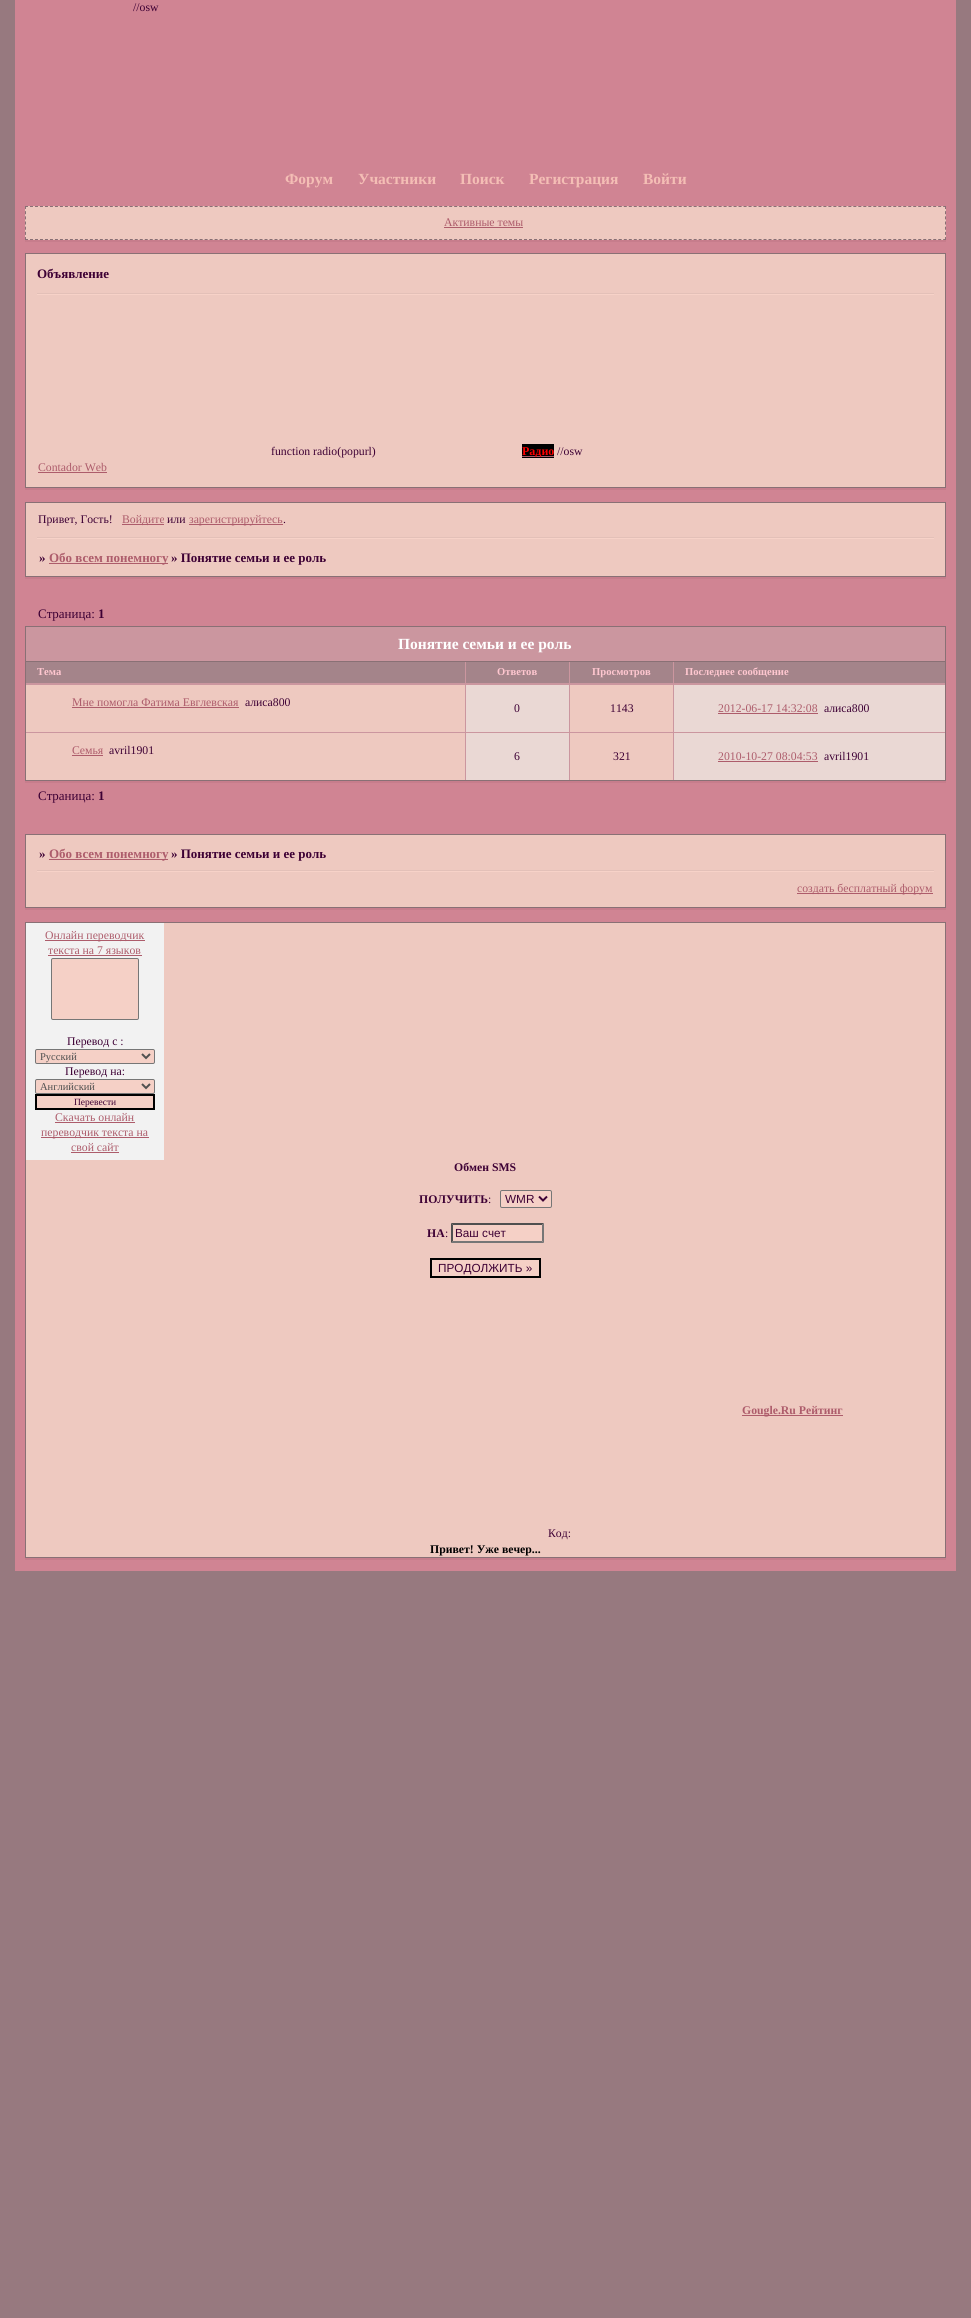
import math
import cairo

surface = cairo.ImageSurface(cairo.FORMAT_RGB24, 971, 2318)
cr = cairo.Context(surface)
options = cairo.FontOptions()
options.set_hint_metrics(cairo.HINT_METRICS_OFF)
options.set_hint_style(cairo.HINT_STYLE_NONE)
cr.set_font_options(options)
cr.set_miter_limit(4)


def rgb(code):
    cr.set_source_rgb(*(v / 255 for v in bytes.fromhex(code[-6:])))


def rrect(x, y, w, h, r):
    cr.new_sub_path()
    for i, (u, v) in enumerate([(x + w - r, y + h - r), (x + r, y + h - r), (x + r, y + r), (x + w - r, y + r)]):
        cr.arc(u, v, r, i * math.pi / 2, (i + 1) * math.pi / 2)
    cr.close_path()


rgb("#97797f")
cr.paint()
for x, y, w, h, color in [
    (15, 0, 941, 1571, "#d08493"),
    (25, 240, 921, 2, "#c77d8c"),
    (25, 206, 921, 34, "#eec9c0"),
]:
    rgb(color)
    cr.rectangle(x, y, w, h)
    cr.fill()
cr.new_path()
cr.move_to(25, 206.5)
cr.line_to(946, 206.5)
rgb("#897075")
cr.set_line_width(1)
cr.set_dash([3, 1.99])
cr.stroke()
cr.new_path()
cr.move_to(945.5, 206)
cr.line_to(945.5, 240)
cr.set_dash([3, 2.17])
cr.stroke()
cr.new_path()
cr.move_to(25, 239.5)
cr.line_to(946, 239.5)
cr.set_dash([3, 1.99])
cr.stroke()
cr.new_path()
cr.move_to(25.5, 206)
cr.line_to(25.5, 240)
cr.set_dash([3, 2.17])
cr.stroke()
rgb("#ad5c6b")
cr.rectangle(444, 227, 79, 1)
cr.fill()
rgb("#c77d8c")
cr.rectangle(25, 488, 921, 2)
cr.fill()
rgb("#eec9c0")
cr.rectangle(25.5, 253.5, 920, 234)
cr.fill_preserve()
rgb("#897075")
cr.set_dash([])
cr.stroke()
for x, y, w, h, color in [
    (37, 294, 897, 1, "#f7d2c8"),
    (37, 293, 897, 1, "#e3c0b8"),
    (522, 444, 32, 14, "#000000"),
    (522, 456, 32, 1, "#ad5c6b"),
    (38, 472, 69, 1, "#ad5c6b"),
    (26, 503, 919, 73, "#eec9c0"),
    (25, 502, 921, 1, "#897075"),
    (945, 502, 1, 75, "#897075"),
    (25, 502, 1, 37, "#897075"),
    (122, 524, 42, 1, "#ad5c6b"),
    (189, 524, 94, 1, "#ad5c6b"),
    (37, 537, 897, 1, "#e3c0b8"),
    (37, 538, 897, 1, "#f7d2c8"),
    (25, 577, 921, 2, "#c77d8c"),
    (25, 576, 921, 1, "#897075"),
    (25, 537, 1, 40, "#897075"),
    (49, 563, 119, 1, "#ad5c6b"),
    (26, 627, 919, 34, "#cb969f"),
    (25, 626, 921, 1, "#897075"),
    (945, 626, 1, 35, "#897075"),
    (25, 626, 1, 35, "#897075"),
    (25, 781, 921, 2, "#c77d8c"),
    (26, 685, 647, 95, "#eec9c0"),
]:
    rgb(color)
    cr.rectangle(x, y, w, h)
    cr.fill()
cr.rectangle(25.5, 661.5, 920, 119)
rgb("#897075")
cr.stroke()
for x, y, w, h, color in [
    (26, 662, 439, 21, "#a4848a"),
    (466, 662, 103, 21, "#a4848a"),
    (26, 683, 919, 1, "#cb969f"),
    (465, 662, 1, 22, "#cb969f"),
    (570, 662, 103, 21, "#a4848a"),
    (569, 662, 1, 22, "#cb969f"),
    (674, 662, 271, 21, "#a4848a"),
    (26, 684, 919, 1, "#cb969f"),
    (26, 732, 919, 1, "#cb969f"),
    (673, 662, 1, 118, "#cb969f"),
    (72, 707, 167, 1, "#ad5c6b"),
    (466, 685, 103, 47, "#ead8d4"),
    (465, 684, 1, 48, "#cb969f"),
    (569, 684, 1, 48, "#cb969f"),
    (674, 685, 271, 47, "#ead8d4"),
    (718, 713, 100, 1, "#ad5c6b"),
    (72, 755, 31, 1, "#ad5c6b"),
    (466, 733, 103, 47, "#ead8d4"),
    (465, 732, 1, 48, "#cb969f"),
    (569, 732, 1, 48, "#cb969f"),
    (674, 733, 271, 47, "#ead8d4"),
    (718, 761, 100, 1, "#ad5c6b"),
    (25, 834, 921, 1, "#897075"),
    (945, 870, 1, 38, "#897075"),
    (945, 834, 1, 38, "#897075"),
    (25, 907, 921, 1, "#897075"),
    (25, 870, 1, 38, "#897075"),
    (25, 834, 1, 38, "#897075"),
    (26, 835, 919, 72, "#eec9c0"),
    (49, 859, 119, 1, "#ad5c6b"),
    (37, 870, 897, 1, "#e3c0b8"),
    (37, 871, 897, 1, "#f7d2c8"),
    (25, 908, 921, 2, "#c77d8c"),
    (797, 893, 136, 1, "#ad5c6b"),
    (25, 1558, 921, 2, "#c77d8c"),
]:
    rgb(color)
    cr.rectangle(x, y, w, h)
    cr.fill()
rgb("#eec9c0")
cr.rectangle(25.5, 922.5, 920, 635)
cr.fill_preserve()
rgb("#897075")
cr.stroke()
for x, y, w, h, color in [
    (26, 923, 138, 237, "#f2f2f2"),
    (45, 940, 100, 1, "#ad5c6b"),
    (48, 955, 94, 1, "#ad5c6b"),
]:
    rgb(color)
    cr.rectangle(x, y, w, h)
    cr.fill()
rgb("#f5d0c6")
rrect(51.5, 958.5, 87, 61, 1.5)
cr.fill_preserve()
rgb("#767676")
cr.stroke()
rgb("#f5d0c6")
rrect(35.5, 1049.5, 119, 14, 1.5)
cr.fill_preserve()
rgb("#767676")
cr.stroke()
cr.new_path()
cr.move_to(142, 1054)
cr.line_to(146, 1058)
cr.line_to(150, 1054)
rgb("#505050")
cr.set_line_width(2)
cr.stroke()
rgb("#f5d0c6")
rrect(35.5, 1079.5, 119, 14, 1.5)
cr.fill_preserve()
rgb("#767676")
cr.set_line_width(1)
cr.stroke()
cr.new_path()
cr.move_to(142, 1084)
cr.line_to(146, 1088)
cr.line_to(150, 1084)
rgb("#505050")
cr.set_line_width(2)
cr.stroke()
rgb("#f5d0c6")
cr.rectangle(36, 1095, 118, 14)
cr.fill_preserve()
rgb("#000000")
cr.stroke()
for x, y, w, h, color in [
    (55, 1122, 80, 1, "#ad5c6b"),
    (41, 1137, 108, 1, "#ad5c6b"),
    (71, 1152, 48, 1, "#ad5c6b"),
]:
    rgb(color)
    cr.rectangle(x, y, w, h)
    cr.fill()
rgb("#f5d0c6")
rrect(500.5, 1190.5, 51, 17, 1.5)
cr.fill_preserve()
rgb("#767676")
cr.set_line_width(1)
cr.stroke()
cr.new_path()
cr.move_to(539, 1196.5)
cr.line_to(543, 1200.5)
cr.line_to(547, 1196.5)
rgb("#3d0034")
cr.set_line_width(2)
cr.stroke()
rgb("#f5d0c6")
cr.rectangle(451, 1223, 93, 20)
cr.fill()
rgb("#4f4f4f")
cr.new_path()
cr.move_to(451, 1223)
cr.line_to(544, 1223)
cr.line_to(542, 1225)
cr.line_to(453, 1225)
cr.close_path()
cr.fill()
rgb("#767676")
cr.new_path()
cr.move_to(544, 1223)
cr.line_to(544, 1243)
cr.line_to(542, 1241)
cr.line_to(542, 1225)
cr.close_path()
cr.fill()
cr.new_path()
cr.move_to(544, 1243)
cr.line_to(451, 1243)
cr.line_to(453, 1241)
cr.line_to(542, 1241)
cr.close_path()
cr.fill()
rgb("#4f4f4f")
cr.new_path()
cr.move_to(451, 1243)
cr.line_to(451, 1223)
cr.line_to(453, 1225)
cr.line_to(453, 1241)
cr.close_path()
cr.fill()
rgb("#f5d0c6")
cr.rectangle(431, 1259, 109, 18)
cr.fill_preserve()
rgb("#000000")
cr.stroke()
rgb("#ad5c6b")
cr.rectangle(742, 1415, 101, 1)
cr.fill()
cr.select_font_face("Liberation Serif")
cr.set_font_size(11.75)
rgb("#3d0034")
cr.move_to(133, 11)
cr.show_text("//osw")
cr.select_font_face("Liberation Serif", cairo.FONT_SLANT_NORMAL, cairo.FONT_WEIGHT_BOLD)
cr.set_font_size(15.5)
rgb("#f4beb5")
for x, y, s in [
    (285, 184, "Форум"),
    (358, 184, "Участники"),
    (460, 184, "Поиск"),
    (529, 184, "Регистрация"),
    (643, 184, "Войти"),
]:
    cr.move_to(x, y)
    cr.show_text(s)
cr.select_font_face("Liberation Serif")
cr.set_font_size(11.75)
rgb("#ad5c6b")
cr.move_to(444, 226)
cr.show_text("Активные темы")
cr.select_font_face("Liberation Serif", cairo.FONT_SLANT_NORMAL, cairo.FONT_WEIGHT_BOLD)
cr.set_font_size(13)
rgb("#3d0034")
cr.move_to(37, 278)
cr.show_text("Объявление")
cr.select_font_face("Liberation Serif")
cr.set_font_size(11.75)
cr.move_to(271, 455)
cr.show_text("function radio(popurl)")
cr.select_font_face("Liberation Serif", cairo.FONT_SLANT_NORMAL, cairo.FONT_WEIGHT_BOLD)
cr.set_font_size(12)
rgb("#ff0000")
cr.move_to(522, 455)
cr.show_text("Радио")
cr.select_font_face("Liberation Serif")
cr.set_font_size(11.75)
rgb("#3d0034")
cr.move_to(557, 455)
cr.show_text("//osw")
rgb("#ad5c6b")
cr.move_to(38, 471)
cr.show_text("Contador Web")
rgb("#3d0034")
cr.move_to(38, 523)
cr.show_text("Привет, Гость!")
rgb("#ad5c6b")
cr.move_to(122, 523)
cr.show_text("Войдите")
rgb("#3d0034")
cr.move_to(167, 523)
cr.show_text("или")
rgb("#ad5c6b")
cr.move_to(189, 523)
cr.show_text("зарегистрируйтесь")
rgb("#3d0034")
cr.move_to(283, 523)
cr.show_text(".")
cr.select_font_face("Liberation Serif", cairo.FONT_SLANT_NORMAL, cairo.FONT_WEIGHT_BOLD)
cr.set_font_size(13)
cr.move_to(39, 562)
cr.show_text("»")
rgb("#ad5c6b")
cr.move_to(49, 562)
cr.show_text("Обо всем понемногу")
rgb("#3d0034")
cr.move_to(171, 562)
cr.show_text("» Понятие семьи и ее роль")
cr.select_font_face("Liberation Serif")
cr.move_to(38, 618)
cr.show_text("Страница:")
cr.select_font_face("Liberation Serif", cairo.FONT_SLANT_NORMAL, cairo.FONT_WEIGHT_BOLD)
cr.move_to(98, 618)
cr.show_text("1")
cr.set_font_size(15.5)
rgb("#ffffff")
cr.move_to(398, 649)
cr.show_text("Понятие семьи и ее роль")
cr.set_font_size(10.6)
rgb("#ffc7d0")
for x, y, s in [
    (37, 675, "Тема"),
    (497, 675, "Ответов"),
    (592, 675, "Просмотров"),
    (685, 675, "Последнее сообщение"),
]:
    cr.move_to(x, y)
    cr.show_text(s)
cr.select_font_face("Liberation Serif")
cr.set_font_size(11.75)
rgb("#ad5c6b")
cr.move_to(72, 706)
cr.show_text("Мне помогла Фатима Евглевская")
rgb("#3d0034")
for x, y, s in [
    (245, 706, "алиса800"),
    (514, 712, "0"),
    (610, 712, "1143"),
]:
    cr.move_to(x, y)
    cr.show_text(s)
rgb("#ad5c6b")
cr.move_to(718, 712)
cr.show_text("2012-06-17 14:32:08")
rgb("#3d0034")
cr.move_to(824, 712)
cr.show_text("алиса800")
rgb("#ad5c6b")
cr.move_to(72, 754)
cr.show_text("Семья")
rgb("#3d0034")
for x, y, s in [
    (109, 754, "avril1901"),
    (514, 760, "6"),
    (613, 760, "321"),
]:
    cr.move_to(x, y)
    cr.show_text(s)
rgb("#ad5c6b")
cr.move_to(718, 760)
cr.show_text("2010-10-27 08:04:53")
rgb("#3d0034")
cr.move_to(824, 760)
cr.show_text("avril1901")
cr.set_font_size(13)
cr.move_to(38, 800)
cr.show_text("Страница:")
cr.select_font_face("Liberation Serif", cairo.FONT_SLANT_NORMAL, cairo.FONT_WEIGHT_BOLD)
cr.move_to(98, 800)
cr.show_text("1")
cr.move_to(39, 858)
cr.show_text("»")
rgb("#ad5c6b")
cr.move_to(49, 858)
cr.show_text("Обо всем понемногу")
rgb("#3d0034")
cr.move_to(171, 858)
cr.show_text("» Понятие семьи и ее роль")
cr.select_font_face("Liberation Serif")
cr.set_font_size(11.75)
rgb("#ad5c6b")
for x, y, s in [
    (797, 892, "создать бесплатный форум"),
    (45, 939, "Онлайн переводчик"),
    (48, 954, "текста на 7 языков"),
]:
    cr.move_to(x, y)
    cr.show_text(s)
rgb("#3d0034")
cr.move_to(67, 1045)
cr.show_text("Перевод с :")
cr.set_font_size(10.5)
rgb("#505050")
cr.move_to(40, 1060)
cr.show_text("Русский")
cr.set_font_size(11.75)
rgb("#3d0034")
cr.move_to(65, 1075)
cr.show_text("Перевод на:")
cr.set_font_size(10.5)
rgb("#505050")
cr.move_to(40, 1090)
cr.show_text("Английский")
cr.set_font_size(9.5)
rgb("#3d0034")
cr.move_to(74, 1105)
cr.show_text("Перевести")
cr.set_font_size(11.75)
rgb("#ad5c6b")
for x, y, s in [
    (55, 1121, "Скачать онлайн"),
    (41, 1136, "переводчик текста на"),
    (71, 1151, "свой сайт"),
]:
    cr.move_to(x, y)
    cr.show_text(s)
cr.select_font_face("Liberation Serif", cairo.FONT_SLANT_NORMAL, cairo.FONT_WEIGHT_BOLD)
rgb("#3d0034")
cr.move_to(454, 1171)
cr.show_text("Обмен SMS")
cr.move_to(419, 1203)
cr.show_text("ПОЛУЧИТЬ")
cr.select_font_face("Liberation Serif")
cr.move_to(488, 1203)
cr.show_text(":")
cr.select_font_face("Liberation Sans")
cr.move_to(505, 1203)
cr.show_text("WMR")
cr.select_font_face("Liberation Serif", cairo.FONT_SLANT_NORMAL, cairo.FONT_WEIGHT_BOLD)
cr.move_to(427, 1237)
cr.show_text("НА")
cr.select_font_face("Liberation Serif")
cr.move_to(445, 1237)
cr.show_text(":")
cr.select_font_face("Liberation Sans")
cr.move_to(455, 1237)
cr.show_text("Ваш счет")
cr.move_to(438, 1272)
cr.show_text("ПРОДОЛЖИТЬ »")
cr.select_font_face("Liberation Serif", cairo.FONT_SLANT_NORMAL, cairo.FONT_WEIGHT_BOLD)
rgb("#ad5c6b")
cr.move_to(742, 1414)
cr.show_text("Gougle.Ru Рейтинг")
cr.select_font_face("Liberation Serif")
rgb("#3d0034")
cr.move_to(548, 1537)
cr.show_text("Код:")
cr.select_font_face("Liberation Serif", cairo.FONT_SLANT_NORMAL, cairo.FONT_WEIGHT_BOLD)
rgb("#000000")
cr.move_to(430, 1553)
cr.show_text("Привет! Уже вечер...")
surface.write_to_png("page.png")
